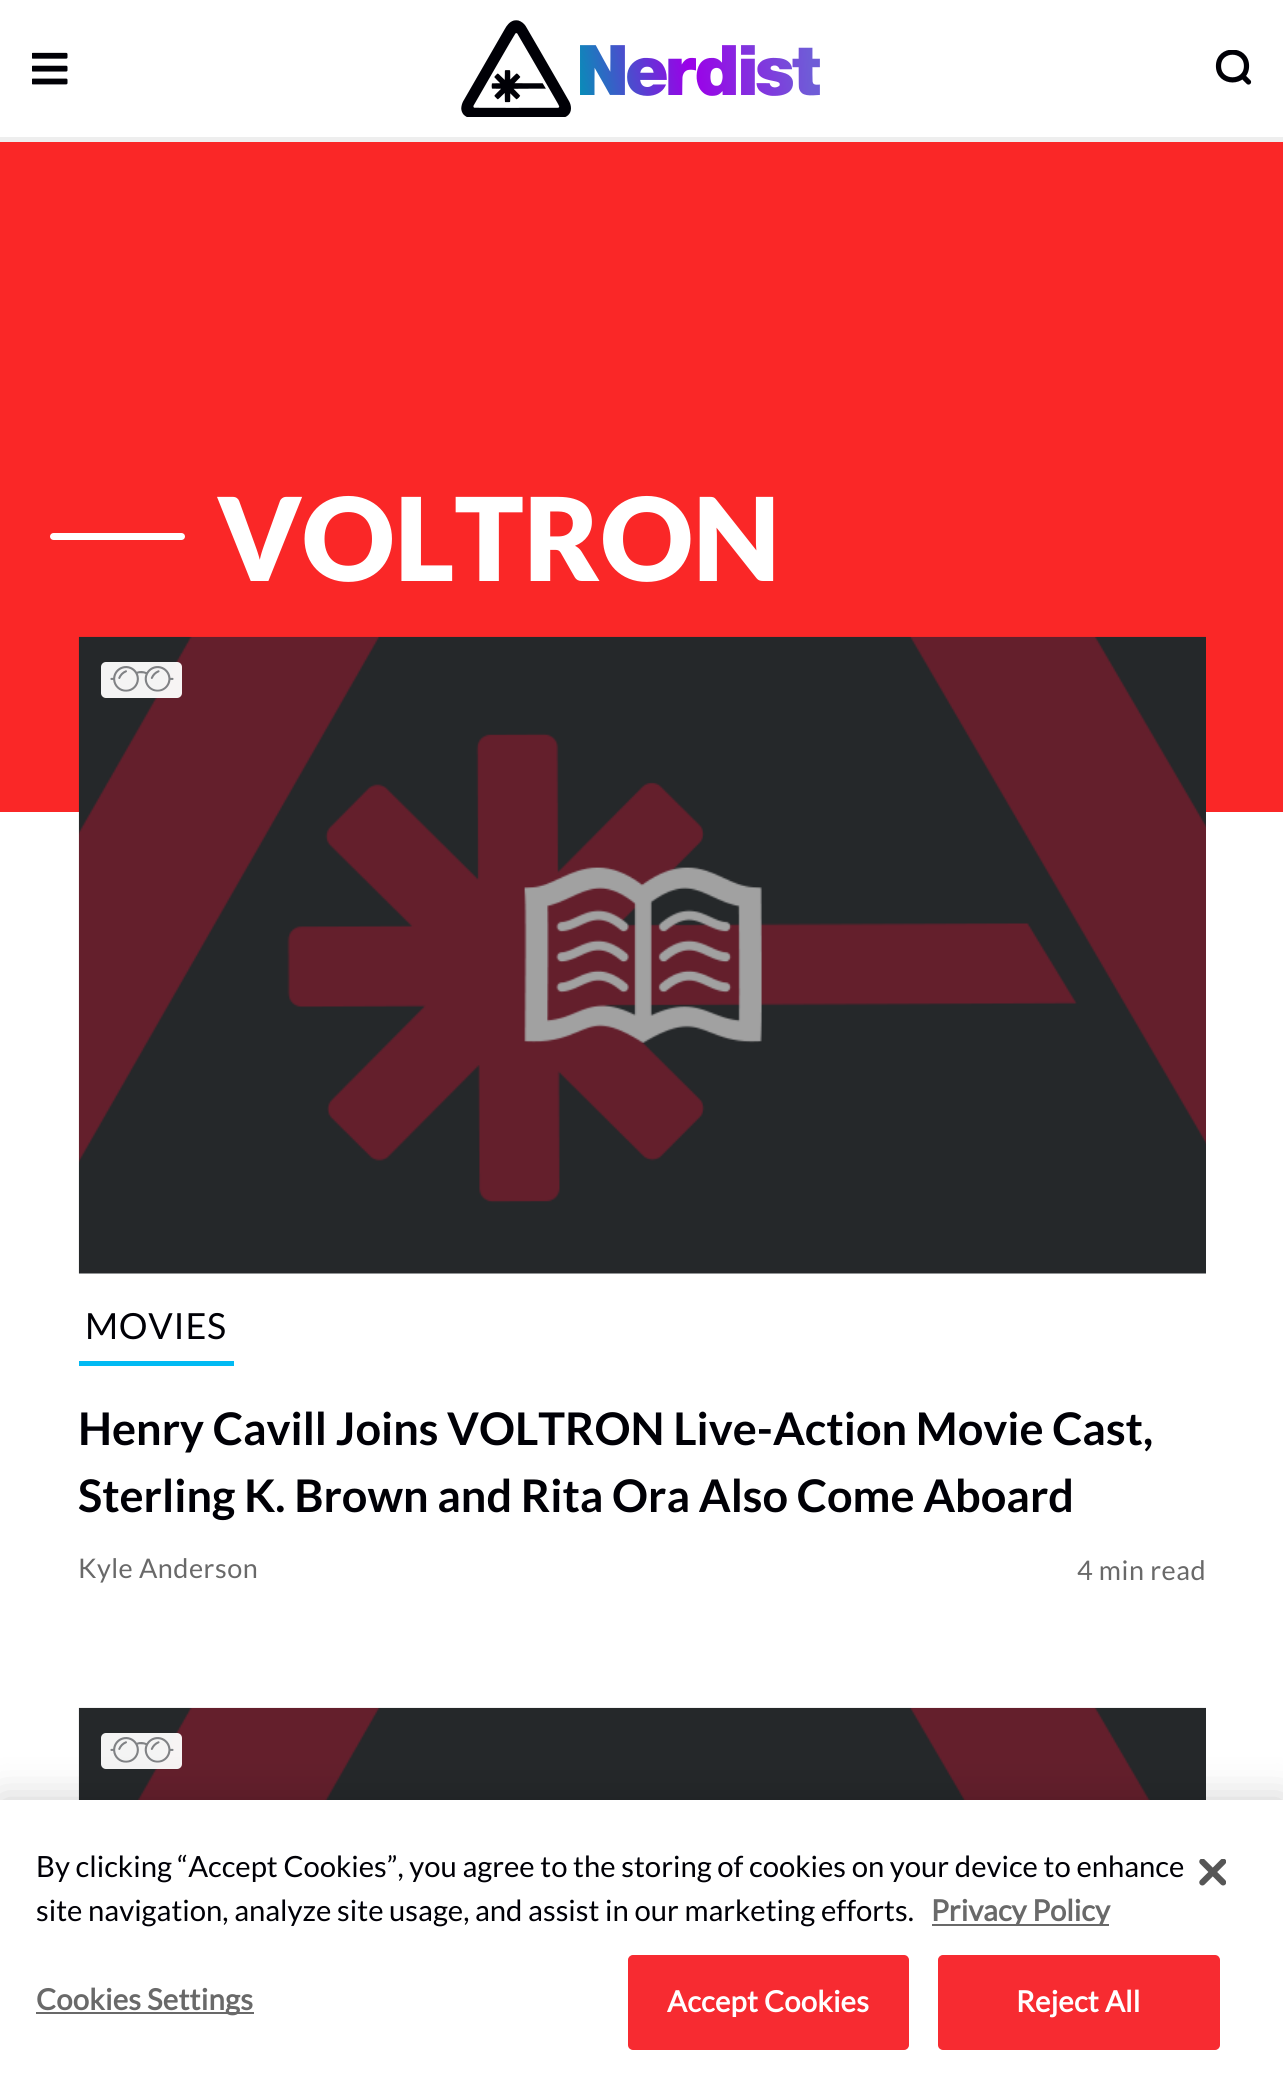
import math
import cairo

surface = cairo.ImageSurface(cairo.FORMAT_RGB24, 1283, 2087)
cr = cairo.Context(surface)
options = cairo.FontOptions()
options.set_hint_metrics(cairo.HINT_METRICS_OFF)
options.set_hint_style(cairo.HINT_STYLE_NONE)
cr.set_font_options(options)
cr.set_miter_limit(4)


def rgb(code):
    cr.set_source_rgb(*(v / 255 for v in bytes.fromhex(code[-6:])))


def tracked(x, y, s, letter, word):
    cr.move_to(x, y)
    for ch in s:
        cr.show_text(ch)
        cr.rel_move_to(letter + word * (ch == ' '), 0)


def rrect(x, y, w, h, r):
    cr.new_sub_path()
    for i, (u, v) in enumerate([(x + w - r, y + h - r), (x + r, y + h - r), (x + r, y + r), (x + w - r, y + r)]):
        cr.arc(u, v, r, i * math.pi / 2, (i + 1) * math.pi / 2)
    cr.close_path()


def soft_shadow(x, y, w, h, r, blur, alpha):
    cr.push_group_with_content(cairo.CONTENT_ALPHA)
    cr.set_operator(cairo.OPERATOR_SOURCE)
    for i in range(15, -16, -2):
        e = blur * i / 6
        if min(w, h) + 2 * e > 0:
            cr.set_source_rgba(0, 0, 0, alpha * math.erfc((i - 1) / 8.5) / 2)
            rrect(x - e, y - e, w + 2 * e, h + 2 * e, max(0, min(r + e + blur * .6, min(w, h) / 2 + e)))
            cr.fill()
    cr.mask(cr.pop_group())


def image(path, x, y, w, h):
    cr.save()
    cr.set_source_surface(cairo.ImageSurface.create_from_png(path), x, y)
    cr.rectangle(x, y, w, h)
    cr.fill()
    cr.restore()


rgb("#fa2727")
cr.paint()
rgb("#ffffff")
cr.rectangle(0, 0, 1283, 137)
cr.fill()
rgb("#eeeeee")
cr.rectangle(0, 137, 1283, 5)
cr.fill()
image("img/1.png", 32, 52, 36, 33)
image("img/2.png", 461, 20, 359, 97)
cr.save()
cr.rectangle(1215, 50, 38, 36)
cr.clip()
cr.new_path()
cr.move_to(1246.5, 66)
cr.curve_to(1246.5, 84.5, 1218.5, 84.5, 1218.5, 66)
cr.curve_to(1218.5, 47.5, 1246.5, 47.5, 1246.5, 66)
cr.close_path()
cr.move_to(1248.5, 82)
cr.line_to(1242.5, 76)
rgb("#000006")
cr.set_line_width(5.2)
cr.set_line_cap(cairo.LINE_CAP_ROUND)
cr.set_line_join(cairo.LINE_JOIN_ROUND)
cr.stroke()
cr.restore()
rgb("#ffffff")
cr.rectangle(0, 812, 1283, 988)
cr.fill()
rrect(50, 533, 135, 7, 3.5)
cr.fill()
image("img/3.png", 78, 636, 1128, 638)
image("img/4.png", 101, 662, 81, 36)
rgb("#01baf3")
cr.rectangle(79, 1361, 155, 5)
cr.fill()
image("img/5.png", 78, 1707, 1128, 93)
image("img/4.png", 101, 1733, 81, 36)
rgb("#000000")
soft_shadow(0, 1800, 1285, 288, 0, 20, 0.2)
for x, y, w, h, color in [
    (0, 1800, 1283, 287, "#ffffff"),
    (932, 1924, 177, 2, "#696969"),
    (36, 2012, 218, 2, "#696969"),
]:
    rgb(color)
    cr.rectangle(x, y, w, h)
    cr.fill()
rgb("#f72b31")
rrect(629, 1956, 279, 93, 4)
cr.fill_preserve()
cr.stroke()
rrect(939, 1956, 280, 93, 4)
cr.fill_preserve()
cr.stroke()
image("img/6.png", 1199, 1859, 27, 27)
cr.select_font_face("Lato Black")
cr.set_font_size(115.5)
rgb("#ffffff")
cr.move_to(217, 581)
cr.show_text("VOLTRON")
cr.select_font_face("Lato")
cr.set_font_size(36)
rgb("#000006")
tracked(85, 1339, "MOVIES", 0.75, 0)
cr.select_font_face("Lato", cairo.FONT_SLANT_NORMAL, cairo.FONT_WEIGHT_BOLD)
cr.set_font_size(45)
cr.move_to(78, 1445)
cr.show_text("Henry Cavill Joins VOLTRON Live-Action Movie Cast,")
cr.move_to(78, 1512)
cr.show_text("Sterling K. Brown and Rita Ora Also Come Aboard")
cr.select_font_face("Lato")
cr.set_font_size(27)
rgb("#696969")
tracked(78, 1578, "Kyle Anderson", 0.5, 0)
tracked(1077, 1580, "4 min read", 0.5, 0)
cr.set_font_size(29.25)
rgb("#000006")
cr.move_to(36, 1877)
cr.show_text("By clicking “Accept Cookies”, you agree to the storing of cookies on your device to enhance")
cr.move_to(36, 1921)
cr.show_text("site navigation, analyze site usage, and assist in our marketing efforts.")
cr.select_font_face("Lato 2", cairo.FONT_SLANT_NORMAL, cairo.FONT_WEIGHT_BOLD)
rgb("#696969")
cr.move_to(931, 1921)
cr.show_text("Privacy Policy")
tracked(36, 2010, "Cookies Settings", 0.25, 0)
rgb("#ffffff")
tracked(667, 2012, "Accept Cookies", 0.25, 0)
tracked(1016, 2012, "Reject All", 0.25, 0)
surface.write_to_png("page.png")
